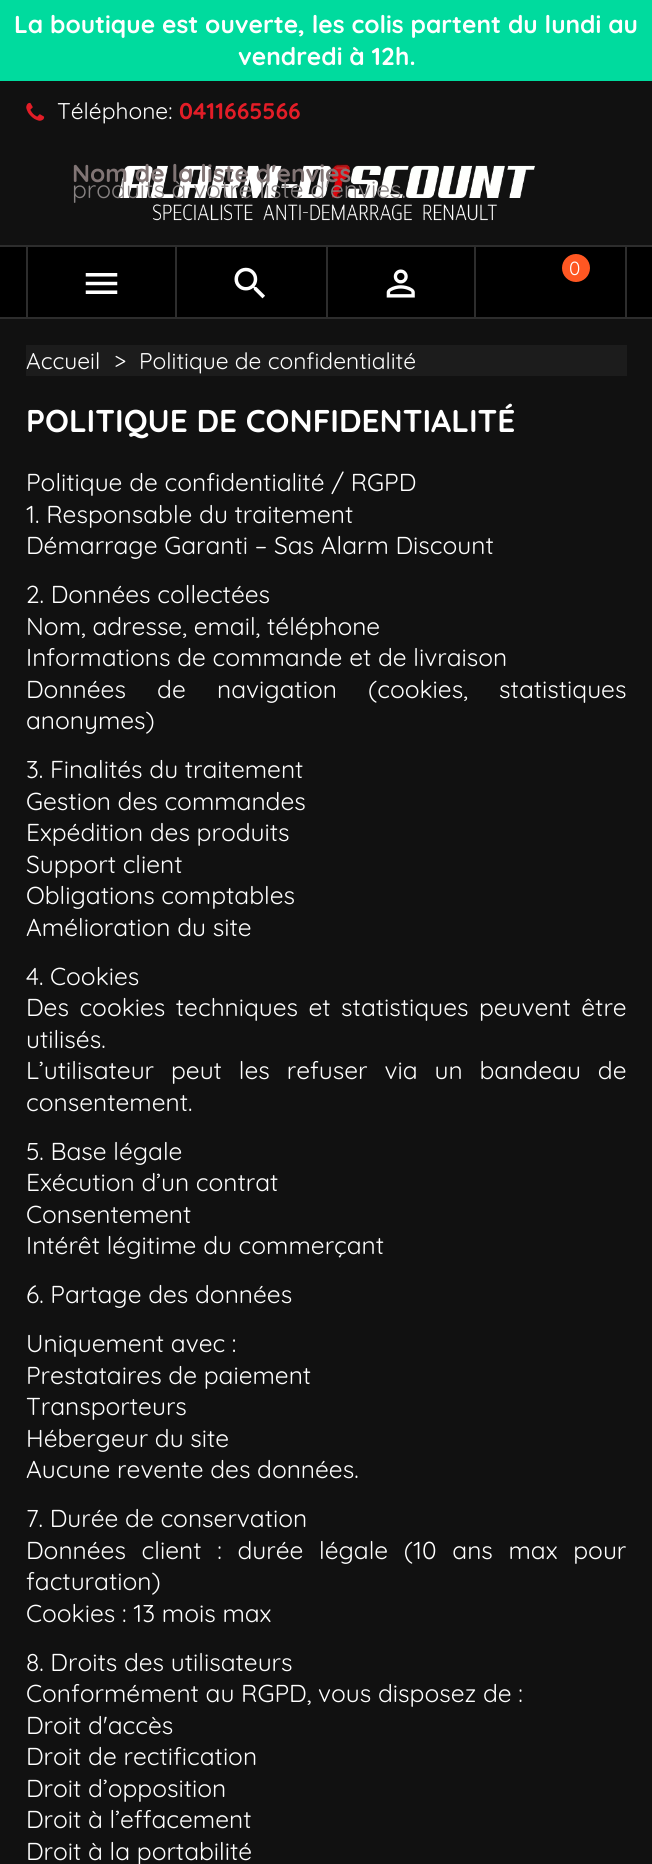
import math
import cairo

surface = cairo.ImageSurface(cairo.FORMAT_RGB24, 652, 1864)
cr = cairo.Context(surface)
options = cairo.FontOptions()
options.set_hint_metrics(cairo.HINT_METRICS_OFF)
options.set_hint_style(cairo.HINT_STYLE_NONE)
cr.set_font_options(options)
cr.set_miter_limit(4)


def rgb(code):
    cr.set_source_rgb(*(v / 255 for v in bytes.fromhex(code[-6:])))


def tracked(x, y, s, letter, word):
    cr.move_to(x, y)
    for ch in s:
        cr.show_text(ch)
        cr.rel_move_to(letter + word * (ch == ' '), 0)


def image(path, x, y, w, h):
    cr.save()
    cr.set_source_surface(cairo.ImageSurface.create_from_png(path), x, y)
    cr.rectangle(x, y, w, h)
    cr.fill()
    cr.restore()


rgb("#00db9e")
cr.paint()
rgb("#111111")
cr.rectangle(0, 81, 652, 1783)
cr.fill()
image("img/1.png", 26, 102, 19, 19)
image("img/2.png", 118, 164, 417, 57)
for x, y, w, h, color in [
    (0, 247, 652, 70, "#000000"),
    (0, 245, 652, 2, "#2d2d2d"),
    (0, 317, 652, 2, "#2d2d2d"),
    (175, 247, 2, 70, "#2d2d2d"),
    (26, 247, 2, 70, "#2d2d2d"),
]:
    rgb(color)
    cr.rectangle(x, y, w, h)
    cr.fill()
image("img/3.png", 85, 273, 33, 21)
cr.rectangle(326, 247, 2, 70)
cr.fill()
image("img/4.png", 234, 267, 31, 32)
cr.rectangle(474, 247, 2, 70)
cr.fill()
image("img/5.png", 386, 269, 29, 29)
cr.rectangle(625, 247, 2, 70)
cr.fill()
rgb("#ff5722")
cr.arc(576, 268, 14, 0, 2 * math.pi)
cr.fill()
rgb("#1c1c1c")
cr.rectangle(26, 345, 601, 31)
cr.fill()
cr.select_font_face("Quicksand", cairo.FONT_SLANT_NORMAL, cairo.FONT_WEIGHT_BOLD)
cr.set_font_size(24.5)
rgb("#ffffff")
cr.move_to(14, 33)
cr.show_text("La boutique est ouverte, les colis partent du lundi au")
cr.move_to(238, 65)
cr.show_text("vendredi à 12h.")
cr.select_font_face("Quicksand")
cr.set_font_size(22.75)
cr.move_to(57, 119)
cr.show_text("Téléphone:")
cr.select_font_face("Quicksand", cairo.FONT_SLANT_NORMAL, cairo.FONT_WEIGHT_BOLD)
rgb("#e31d27")
cr.move_to(179, 119)
cr.show_text("0411665566")
cr.select_font_face("Quicksand")
cr.set_font_size(19)
rgb("#ffffff")
cr.move_to(569, 275)
cr.show_text("0")
cr.select_font_face("Quicksand", cairo.FONT_SLANT_NORMAL, cairo.FONT_WEIGHT_BOLD)
cr.set_font_size(24.5)
rgb("#817575")
cr.move_to(72, 182)
cr.show_text("Nom de la liste d'envies")
cr.select_font_face("Quicksand")
rgb("#878282")
cr.move_to(72, 198)
cr.show_text("produits à votre liste d'envies.")
cr.set_font_size(22.75)
rgb("#ffffff")
for x, y, s in [
    (26, 369, "Accueil"),
    (114, 369, ">"),
    (139, 369, "Politique de confidentialité"),
]:
    cr.move_to(x, y)
    cr.show_text(s)
cr.select_font_face("Quicksand", cairo.FONT_SLANT_NORMAL, cairo.FONT_WEIGHT_BOLD)
cr.set_font_size(31.5)
cr.move_to(26, 432)
cr.show_text("POLITIQUE DE CONFIDENTIALITÉ")
cr.select_font_face("Quicksand")
cr.set_font_size(24.5)
for x, y, s in [
    (26, 491, "Politique de confidentialité / RGPD"),
    (26, 523, "1. Responsable du traitement"),
    (26, 554, "Démarrage Garanti – Sas Alarm Discount"),
    (26, 603, "2. Données collectées"),
    (26, 635, "Nom, adresse, email, téléphone"),
    (26, 666, "Informations de commande et de livraison"),
]:
    cr.move_to(x, y)
    cr.show_text(s)
tracked(26, 698, "Données de navigation (cookies, statistiques", 0, 24.5)
for x, y, s in [
    (26, 729, "anonymes)"),
    (26, 778, "3. Finalités du traitement"),
    (26, 810, "Gestion des commandes"),
    (26, 841, "Expédition des produits"),
    (26, 873, "Support client"),
    (26, 904, "Obligations comptables"),
    (26, 936, "Amélioration du site"),
    (26, 985, "4. Cookies"),
]:
    cr.move_to(x, y)
    cr.show_text(s)
tracked(26, 1016, "Des cookies techniques et statistiques peuvent être", 0, 3.75)
cr.move_to(26, 1048)
cr.show_text("utilisés.")
tracked(26, 1079, "L’utilisateur peut les refuser via un bandeau de", 0, 10.25)
for x, y, s in [
    (26, 1111, "consentement."),
    (26, 1160, "5. Base légale"),
    (26, 1191, "Exécution d’un contrat"),
    (26, 1223, "Consentement"),
    (26, 1254, "Intérêt légitime du commerçant"),
    (26, 1303, "6. Partage des données"),
    (26, 1352, "Uniquement avec :"),
    (26, 1384, "Prestataires de paiement"),
    (26, 1415, "Transporteurs"),
    (26, 1447, "Hébergeur du site"),
    (26, 1478, "Aucune revente des données."),
    (26, 1527, "7. Durée de conservation"),
]:
    cr.move_to(x, y)
    cr.show_text(s)
tracked(26, 1559, "Données client : durée légale (10 ans max pour", 0, 9)
for x, y, s in [
    (26, 1590, "facturation)"),
    (26, 1622, "Cookies : 13 mois max"),
    (26, 1671, "8. Droits des utilisateurs"),
    (26, 1702, "Conformément au RGPD, vous disposez de :"),
    (26, 1734, "Droit d'accès"),
    (26, 1765, "Droit de rectification"),
    (26, 1797, "Droit d’opposition"),
    (26, 1828, "Droit à l’effacement"),
    (26, 1860, "Droit à la portabilité"),
]:
    cr.move_to(x, y)
    cr.show_text(s)
surface.write_to_png("page.png")
